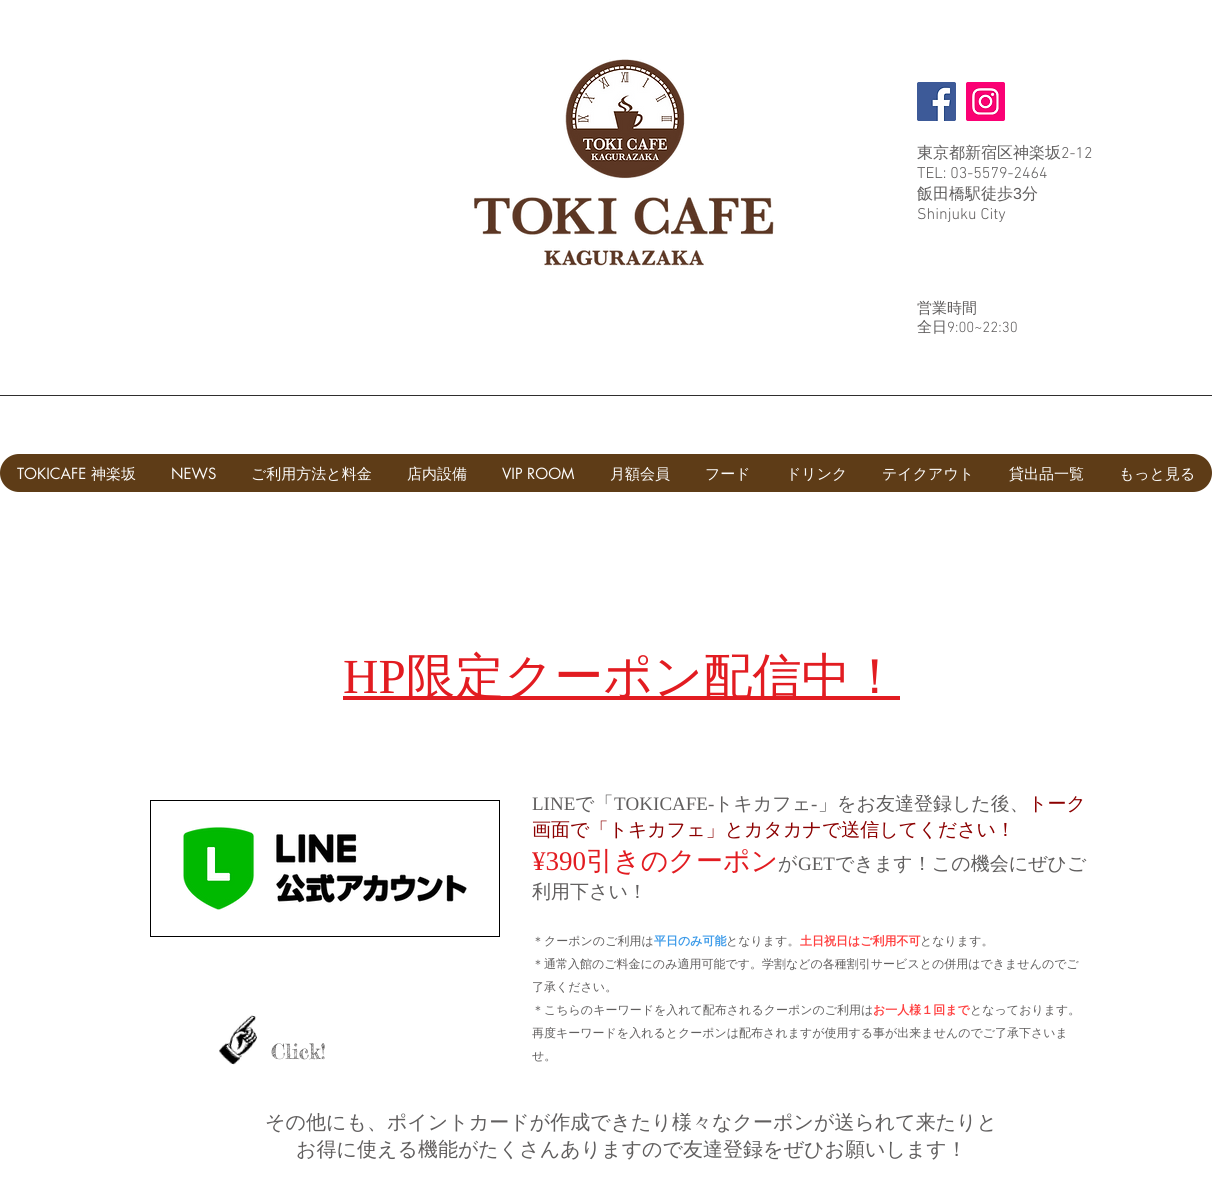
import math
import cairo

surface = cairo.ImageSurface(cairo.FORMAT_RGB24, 1212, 1190)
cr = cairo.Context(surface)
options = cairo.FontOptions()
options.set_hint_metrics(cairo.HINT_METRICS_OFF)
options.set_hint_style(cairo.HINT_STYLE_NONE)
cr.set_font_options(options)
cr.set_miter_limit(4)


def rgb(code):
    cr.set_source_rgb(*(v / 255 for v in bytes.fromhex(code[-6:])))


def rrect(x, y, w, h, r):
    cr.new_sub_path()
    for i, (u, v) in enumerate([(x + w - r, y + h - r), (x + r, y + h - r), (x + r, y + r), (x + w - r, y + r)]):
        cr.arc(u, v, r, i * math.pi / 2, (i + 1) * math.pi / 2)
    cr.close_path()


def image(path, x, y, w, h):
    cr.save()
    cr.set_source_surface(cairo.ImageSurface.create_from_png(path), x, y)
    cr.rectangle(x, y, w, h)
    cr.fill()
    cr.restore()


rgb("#ffffff")
cr.paint()
image("img/1.png", 474, 59, 300, 207)
image("img/2.png", 917, 82, 39, 39)
image("img/3.png", 966, 82, 39, 39)
rgb("#2f2e2e")
cr.rectangle(0, 395, 1212, 1)
cr.fill()
rgb("#5e3c17")
rrect(0, 454, 1212, 38, 19)
cr.fill()
rgb("#e21c21")
cr.rectangle(343, 696, 557, 4)
cr.fill()
cr.rectangle(150.5, 800.5, 349, 136)
rgb("#000000")
cr.set_line_width(1)
cr.stroke()
image("img/4.png", 183, 827, 284, 83)
image("img/5.png", 219, 1015, 38, 50)
cr.select_font_face("WenQuanYi Zen Hei Medium")
cr.set_font_size(16)
rgb("#605e5e")
cr.move_to(917, 158)
cr.show_text("東京都新宿区神楽坂")
cr.select_font_face("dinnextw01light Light")
cr.move_to(1061, 158)
cr.show_text("2-12")
cr.move_to(917, 178)
cr.show_text("TEL: 03-5579-2464")
cr.select_font_face("WenQuanYi Zen Hei Medium")
cr.move_to(917, 199)
cr.show_text("飯田橋駅徒歩")
cr.select_font_face("Liberation Sans")
cr.move_to(1013, 199)
cr.show_text("3")
cr.select_font_face("WenQuanYi Zen Hei Medium")
cr.move_to(1022, 199)
cr.show_text("分")
cr.select_font_face("dinnextw01light Light")
cr.move_to(917, 219)
cr.show_text("Shinjuku City")
cr.select_font_face("WenQuanYi Zen Hei Medium")
cr.set_font_size(15)
cr.move_to(917, 313)
cr.show_text("営業時間")
cr.move_to(917, 332)
cr.show_text("全日")
cr.select_font_face("dinnextw01light Light")
cr.move_to(947, 332)
cr.show_text("9:00~22:30")
cr.select_font_face("futura")
rgb("#fcfcfc")
cr.move_to(17, 479)
cr.show_text("TOKICAFE")
cr.select_font_face("WenQuanYi Zen Hei Medium")
cr.move_to(91, 479)
cr.show_text("神楽坂")
cr.select_font_face("futura")
cr.move_to(171, 479)
cr.show_text("NEWS")
cr.select_font_face("WenQuanYi Zen Hei Medium")
cr.move_to(251, 479)
cr.show_text("ご利用方法と料金")
cr.move_to(407, 479)
cr.show_text("店内設備")
cr.select_font_face("futura")
cr.move_to(502, 479)
cr.show_text("VIP ROOM")
cr.select_font_face("WenQuanYi Zen Hei Medium")
for x, y, s in [
    (610, 479, "月額会員"),
    (705, 479, "フード"),
    (786, 479, "ドリンク"),
    (882, 479, "テイクアウト"),
    (1009, 479, "貸出品一覧"),
    (1119, 479, "もっと見る"),
]:
    cr.move_to(x, y)
    cr.show_text(s)
cr.select_font_face("Liberation Serif")
cr.set_font_size(49)
rgb("#e21c21")
cr.move_to(343, 693)
cr.show_text("HP")
cr.select_font_face("WenQuanYi Zen Hei Medium")
cr.move_to(406, 693)
cr.show_text("限定クーポン配信中！")
cr.select_font_face("Liberation Serif")
cr.set_font_size(19)
rgb("#605e5e")
cr.move_to(532, 810)
cr.show_text("LINE")
cr.select_font_face("WenQuanYi Zen Hei Medium")
cr.move_to(575, 810)
cr.show_text("で「")
cr.select_font_face("Liberation Serif")
cr.move_to(614, 810)
cr.show_text("TOKICAFE-")
cr.select_font_face("WenQuanYi Zen Hei Medium")
cr.move_to(714, 810)
cr.show_text("トキカフェ")
cr.select_font_face("Liberation Serif")
cr.move_to(811, 810)
cr.show_text("-")
cr.select_font_face("WenQuanYi Zen Hei Medium")
cr.move_to(818, 810)
cr.show_text("」をお友達登録した後、")
rgb("#8b0000")
cr.move_to(1028, 810)
cr.show_text("トーク")
cr.move_to(532, 836)
cr.show_text("画面で「トキカフェ」とカタカナで送信してください！")
cr.select_font_face("Liberation Serif")
cr.set_font_size(27)
rgb("#e21c21")
cr.move_to(532, 870)
cr.show_text("¥390")
cr.select_font_face("WenQuanYi Zen Hei Medium")
cr.move_to(586, 870)
cr.show_text("引きのクーポン")
cr.set_font_size(19)
rgb("#605e5e")
cr.move_to(778, 870)
cr.show_text("が")
cr.select_font_face("Liberation Serif")
cr.move_to(798, 870)
cr.show_text("GET")
cr.select_font_face("WenQuanYi Zen Hei Medium")
cr.move_to(835, 870)
cr.show_text("できます！この機会にぜひご")
cr.move_to(532, 898)
cr.show_text("利用下さい！")
cr.set_font_size(12)
cr.move_to(532, 945)
cr.show_text("＊クーポンのご利用は")
cr.select_font_face("WenQuanYi Zen Hei", cairo.FONT_SLANT_NORMAL, cairo.FONT_WEIGHT_BOLD)
rgb("#3d9be9")
cr.move_to(654, 945)
cr.show_text("平日のみ可能")
cr.select_font_face("WenQuanYi Zen Hei Medium")
rgb("#605e5e")
cr.move_to(726, 945)
cr.show_text("となります。")
cr.select_font_face("WenQuanYi Zen Hei", cairo.FONT_SLANT_NORMAL, cairo.FONT_WEIGHT_BOLD)
rgb("#ff4040")
cr.move_to(800, 945)
cr.show_text("土日祝日はご利用不可")
cr.select_font_face("WenQuanYi Zen Hei Medium")
rgb("#605e5e")
for x, y, s in [
    (920, 945, "となります。"),
    (532, 968, "＊通常入館のご料金にのみ適用可能です。学割などの各種割引サービスとの併用はできませんのでご"),
    (532, 991, "了承ください。"),
    (532, 1014, "＊こちらのキーワードを入れて配布されるクーポンのご利用は"),
]:
    cr.move_to(x, y)
    cr.show_text(s)
cr.select_font_face("WenQuanYi Zen Hei", cairo.FONT_SLANT_NORMAL, cairo.FONT_WEIGHT_BOLD)
rgb("#ff4040")
cr.move_to(873, 1014)
cr.show_text("お一人様１回まで")
cr.select_font_face("WenQuanYi Zen Hei Medium")
rgb("#605e5e")
for x, y, s in [
    (970, 1014, "となっております。"),
    (532, 1037, "再度キーワードを入れるとクーポンは配布されますが使用する事が出来ませんのでご了承下さいま"),
    (532, 1060, "せ。"),
]:
    cr.move_to(x, y)
    cr.show_text(s)
cr.select_font_face("Fredericka the Great")
cr.set_font_size(21)
cr.move_to(271, 1059)
cr.show_text("Click!")
cr.select_font_face("WenQuanYi Zen Hei Medium")
cr.set_font_size(20)
cr.move_to(265, 1129)
cr.show_text("その他にも、ポイントカードが作成できたり様々なクーポンが送られて来たりと")
cr.move_to(296, 1156)
cr.show_text("お得に使える機能がたくさんありますので友達登録をぜひお願いします！")
surface.write_to_png("page.png")
